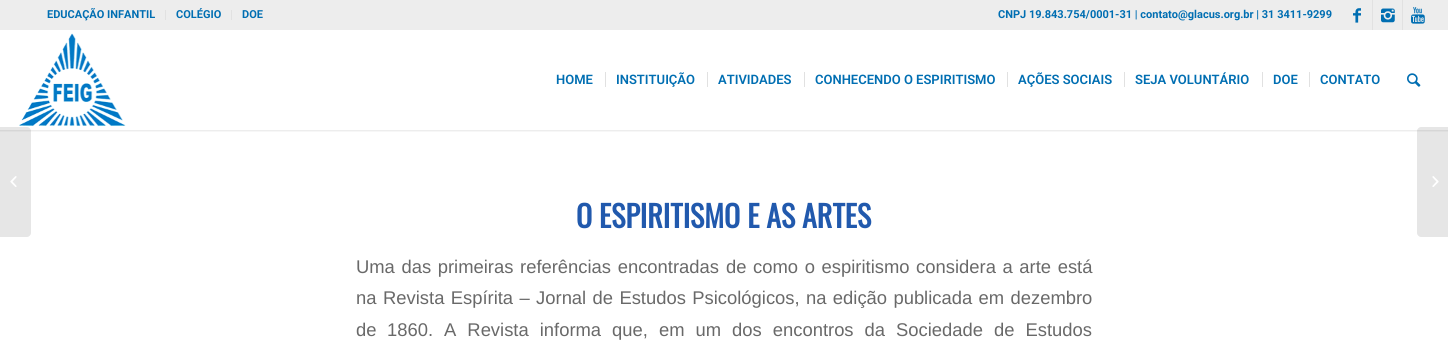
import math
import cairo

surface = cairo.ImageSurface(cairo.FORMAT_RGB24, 1448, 363)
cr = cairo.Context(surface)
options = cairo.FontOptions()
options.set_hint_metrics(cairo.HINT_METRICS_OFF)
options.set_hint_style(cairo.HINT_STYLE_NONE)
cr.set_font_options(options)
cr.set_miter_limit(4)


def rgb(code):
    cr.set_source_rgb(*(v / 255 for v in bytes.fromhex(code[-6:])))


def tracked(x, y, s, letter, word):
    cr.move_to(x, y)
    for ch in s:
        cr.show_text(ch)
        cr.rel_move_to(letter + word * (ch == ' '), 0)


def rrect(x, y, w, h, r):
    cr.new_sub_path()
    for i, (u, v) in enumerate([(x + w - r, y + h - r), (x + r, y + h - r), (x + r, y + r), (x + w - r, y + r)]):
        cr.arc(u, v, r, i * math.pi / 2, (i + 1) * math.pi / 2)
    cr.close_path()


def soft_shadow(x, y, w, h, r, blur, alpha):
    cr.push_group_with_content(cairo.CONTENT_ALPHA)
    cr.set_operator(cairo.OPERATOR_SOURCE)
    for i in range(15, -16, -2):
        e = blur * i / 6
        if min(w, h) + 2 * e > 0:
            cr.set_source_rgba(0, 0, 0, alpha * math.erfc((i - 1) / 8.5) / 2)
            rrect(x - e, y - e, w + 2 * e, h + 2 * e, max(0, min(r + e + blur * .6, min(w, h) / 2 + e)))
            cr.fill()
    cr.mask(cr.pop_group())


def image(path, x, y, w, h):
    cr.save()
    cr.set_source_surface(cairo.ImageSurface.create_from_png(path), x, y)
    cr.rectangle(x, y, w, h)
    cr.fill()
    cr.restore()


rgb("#ffffff")
cr.paint()
cr.save()
cr.rectangle(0, 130, 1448, 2)
cr.clip()
rgb("#000000")
soft_shadow(-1, -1, 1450, 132, 0, 1, 0.1)
cr.restore()
for x, y, w, h, color in [
    (0, 0, 1448, 30, "#ededed"),
    (165, 10, 1, 10, "#e1e1e1"),
    (231, 10, 1, 10, "#e1e1e1"),
    (1372, 0, 1, 30, "#e1e1e1"),
]:
    rgb(color)
    cr.rectangle(x, y, w, h)
    cr.fill()
image("img/1.png", 1353, 8, 8, 15)
cr.rectangle(1402, 0, 1, 30)
cr.fill()
image("img/2.png", 1381, 8, 14, 15)
image("img/3.png", 1411, 7, 14, 17)
image("img/4.png", 19, 33, 107, 93)
for x, y, w, h, color in [
    (605, 72, 1, 15, "#e1e1e1"),
    (707, 72, 1, 15, "#e1e1e1"),
    (804, 72, 1, 15, "#e1e1e1"),
    (1007, 72, 1, 15, "#e1e1e1"),
    (1124, 72, 1, 15, "#e1e1e1"),
    (1262, 72, 1, 15, "#e1e1e1"),
    (1309, 72, 1, 15, "#e1e1e1"),
]:
    rgb(color)
    cr.rectangle(x, y, w, h)
    cr.fill()
image("img/5.png", 1407, 73, 14, 14)
cr.set_source_rgba(0, 0, 0, 0.1)
cr.new_path()
cr.move_to(0, 127)
cr.line_to(27, 127)
cr.curve_to(29, 127, 31, 129, 31, 131)
cr.line_to(31, 233)
cr.curve_to(31, 235, 29, 237, 27, 237)
cr.line_to(0, 237)
cr.close_path()
cr.fill()
image("img/6.png", 10, 176, 7, 11)
cr.new_path()
cr.move_to(1421, 127)
cr.line_to(1448, 127)
cr.line_to(1448, 237)
cr.line_to(1421, 237)
cr.curve_to(1419, 237, 1417, 235, 1417, 233)
cr.line_to(1417, 131)
cr.curve_to(1417, 129, 1419, 127, 1421, 127)
cr.close_path()
cr.fill()
image("img/7.png", 1432, 176, 7, 11)
cr.select_font_face("Roboto", cairo.FONT_SLANT_NORMAL, cairo.FONT_WEIGHT_BOLD)
cr.set_font_size(11)
rgb("#006eb2")
for x, y, s in [
    (47, 18, "EDUCAÇÃO INFANTIL"),
    (176, 18, "COLÉGIO"),
    (242, 18, "DOE"),
    (998, 18, "CNPJ 19.843.754/0001-31 | contato@glacus.org.br | 31 3411-9299"),
]:
    cr.move_to(x, y)
    cr.show_text(s)
cr.select_font_face("Roboto SemiBold")
cr.set_font_size(13)
for x, y, s in [
    (556, 84, "HOME"),
    (616, 84, "INSTITUIÇÃO"),
    (718, 84, "ATIVIDADES"),
    (815, 84, "CONHECENDO O ESPIRITISMO"),
    (1018, 84, "AÇÕES SOCIAIS"),
    (1135, 84, "SEJA VOLUNTÁRIO"),
    (1273, 84, "DOE"),
    (1320, 84, "CONTATO"),
]:
    cr.move_to(x, y)
    cr.show_text(s)
cr.select_font_face("Oswald", cairo.FONT_SLANT_NORMAL, cairo.FONT_WEIGHT_BOLD)
cr.set_font_size(30)
rgb("#2159ad")
cr.move_to(576, 228)
cr.show_text("O ESPIRITISMO E AS ARTES")
cr.select_font_face("Liberation Sans")
cr.set_font_size(18.4)
rgb("#696969")
tracked(356, 273, "Uma das primeiras referências encontradas", 0, 1.5)
tracked(726, 273, "de como o espiritismo considera a arte está", 0, 1.5)
cr.move_to(356, 304)
cr.show_text("na")
tracked(383, 304, "Revista Espírita – Jornal de Estudos Psicológicos, na edição publicada em dezembro", 0, 1.25)
cr.move_to(356, 336)
cr.show_text("de")
tracked(387, 336, "1860. A Revista informa que, em um dos encontros da Sociedade de Estudos", 0, 5.9)
surface.write_to_png("page.png")
